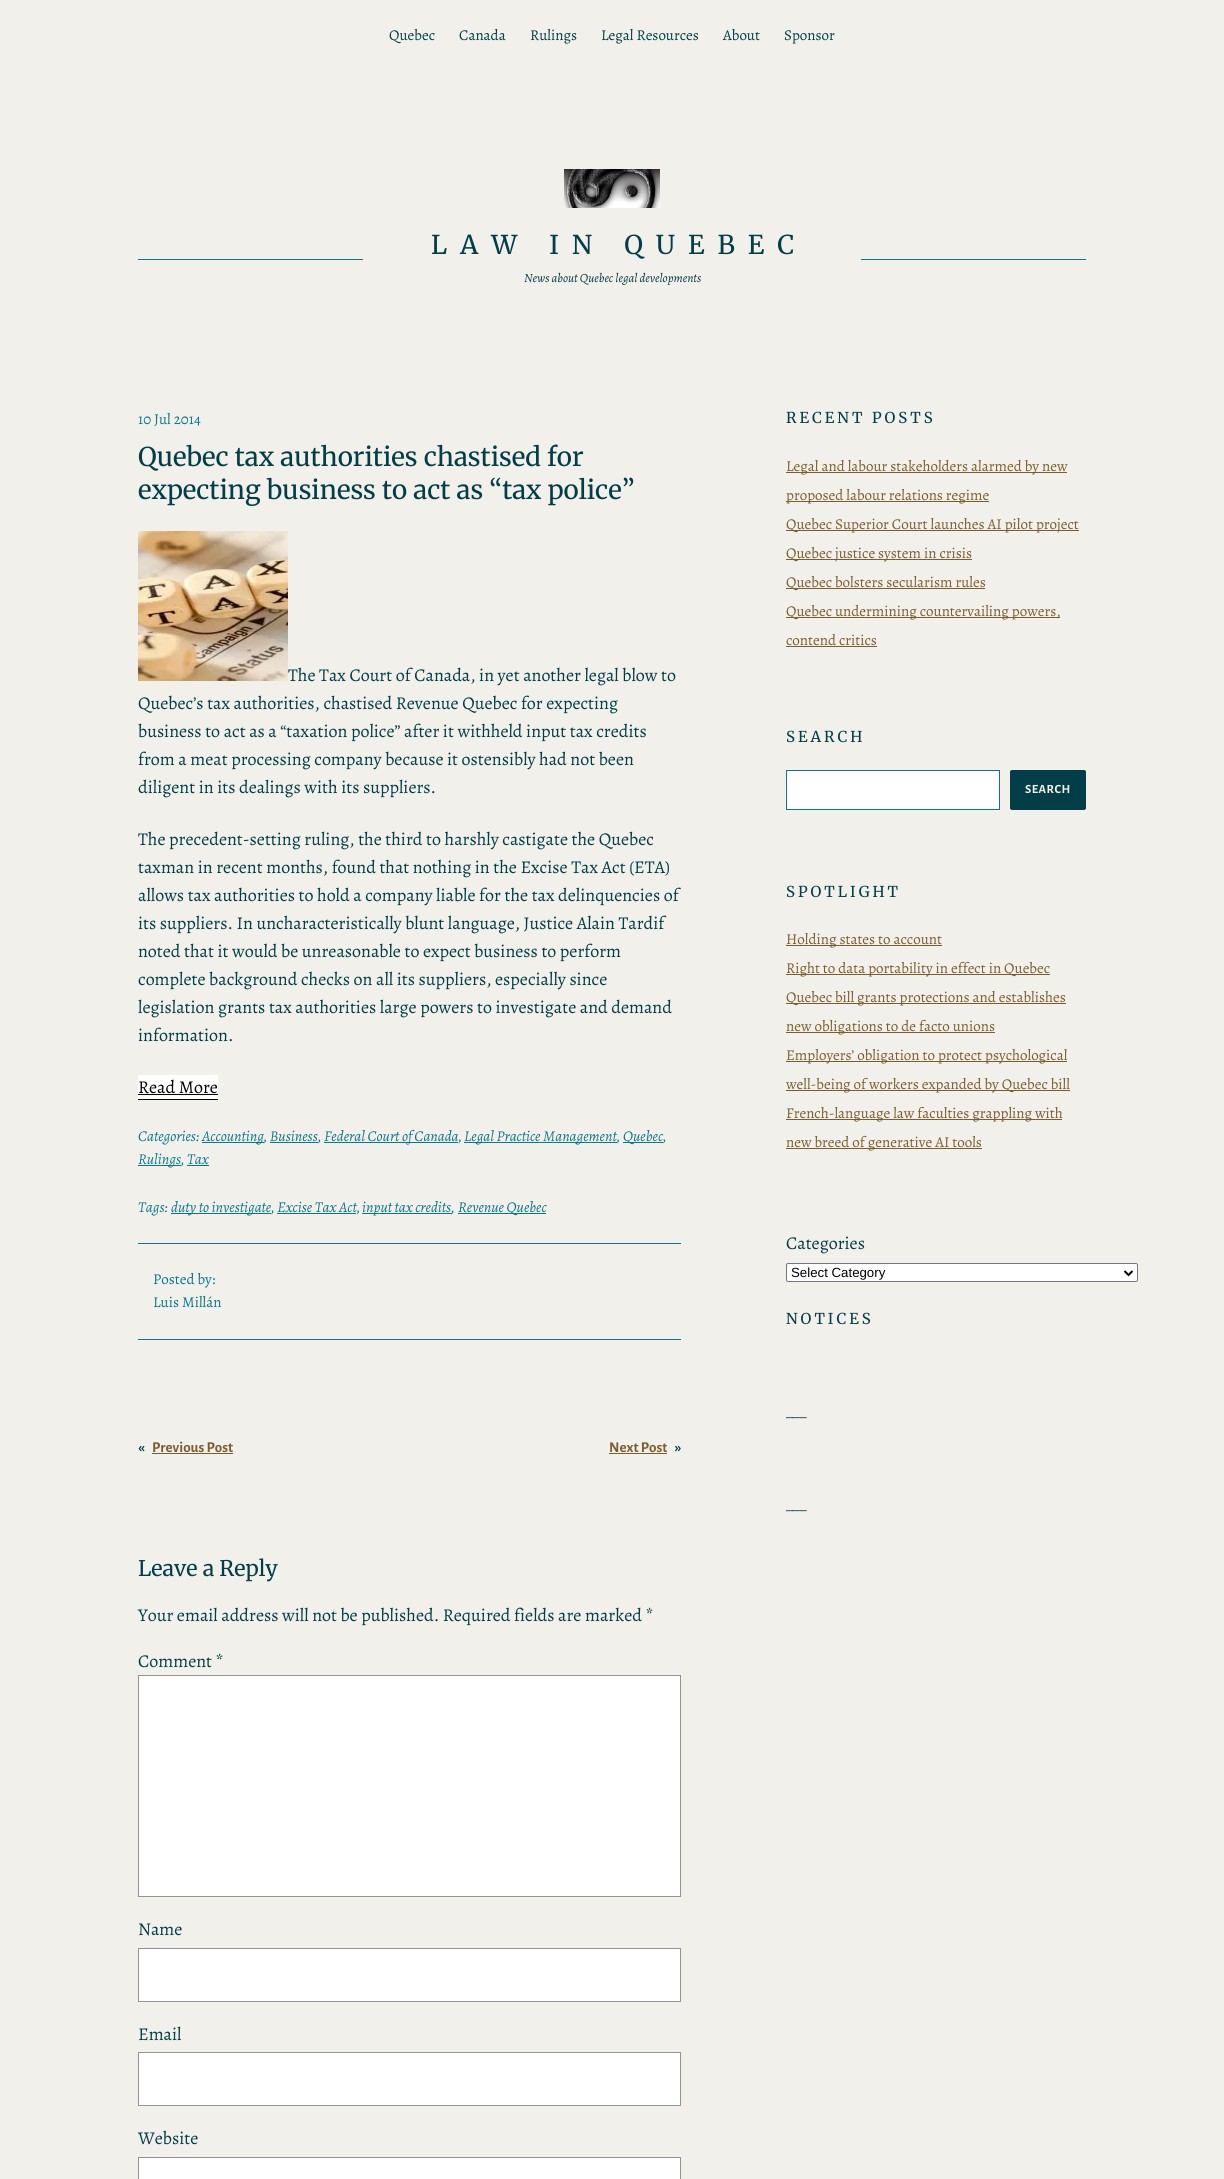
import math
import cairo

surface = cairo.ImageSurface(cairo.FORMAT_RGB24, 1224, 2179)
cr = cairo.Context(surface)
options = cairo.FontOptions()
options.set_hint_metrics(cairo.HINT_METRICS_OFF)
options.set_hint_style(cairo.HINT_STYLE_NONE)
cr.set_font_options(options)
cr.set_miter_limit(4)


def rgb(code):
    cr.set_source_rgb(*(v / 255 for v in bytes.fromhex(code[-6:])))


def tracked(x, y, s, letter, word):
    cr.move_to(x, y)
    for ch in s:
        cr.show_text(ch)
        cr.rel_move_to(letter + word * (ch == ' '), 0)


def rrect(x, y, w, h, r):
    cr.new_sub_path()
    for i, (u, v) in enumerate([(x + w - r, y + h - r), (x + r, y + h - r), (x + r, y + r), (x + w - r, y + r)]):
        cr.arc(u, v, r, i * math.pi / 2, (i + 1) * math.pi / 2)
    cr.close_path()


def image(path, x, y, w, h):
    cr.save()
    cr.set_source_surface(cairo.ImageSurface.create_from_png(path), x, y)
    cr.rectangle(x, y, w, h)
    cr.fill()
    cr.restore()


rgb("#f2f0ea")
cr.paint()
image("img/1.png", 564, 169, 96, 39)
rgb("#097889")
cr.rectangle(138, 259, 225, 1)
cr.fill()
cr.rectangle(861, 259, 225, 1)
cr.fill()
image("img/2.png", 138, 531, 150, 150)
for x, y, w, h, color in [
    (138, 1075, 80, 24, "#ffffff"),
    (138, 1099, 80, 1, "#000000"),
    (138, 1094, 80, 1, "#000000"),
    (202, 1142, 62, 1, "#097889"),
    (324, 1142, 134, 1, "#097889"),
    (464, 1142, 153, 1, "#097889"),
    (623, 1142, 40, 1, "#097889"),
    (270, 1142, 48, 1, "#097889"),
    (138, 1165, 43, 1, "#097889"),
    (187, 1165, 22, 1, "#097889"),
    (171, 1213, 100, 1, "#097889"),
    (362, 1213, 90, 1, "#097889"),
    (458, 1213, 88, 1, "#097889"),
    (277, 1213, 79, 1, "#097889"),
    (138, 1243, 543, 1, "#097889"),
    (138, 1339, 543, 1, "#097889"),
    (152, 1453, 81, 1, "#7a5e2f"),
    (609, 1453, 58, 1, "#7a5e2f"),
]:
    rgb(color)
    cr.rectangle(x, y, w, h)
    cr.fill()
rgb("#ffffff")
cr.rectangle(138.5, 1675.5, 542, 221)
cr.fill_preserve()
rgb("#949494")
cr.set_line_width(1)
cr.stroke()
rgb("#ffffff")
cr.rectangle(138.5, 1948.5, 542, 53)
cr.fill_preserve()
rgb("#949494")
cr.stroke()
rgb("#ffffff")
cr.rectangle(138.5, 2052.5, 542, 53)
cr.fill_preserve()
rgb("#949494")
cr.stroke()
rgb("#ffffff")
cr.rectangle(138.5, 2157.5, 542, 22)
cr.fill_preserve()
rgb("#949494")
cr.stroke()
for x, y, w, h, color in [
    (786, 472, 281, 1, "#7a5e2f"),
    (786, 501, 203, 1, "#7a5e2f"),
    (786, 530, 293, 1, "#7a5e2f"),
    (786, 559, 186, 1, "#7a5e2f"),
    (786, 588, 199, 1, "#7a5e2f"),
    (786, 617, 274, 1, "#7a5e2f"),
    (786, 646, 91, 1, "#7a5e2f"),
]:
    rgb(color)
    cr.rectangle(x, y, w, h)
    cr.fill()
rgb("#ffffff")
cr.rectangle(786.5, 770.5, 213, 39)
cr.fill_preserve()
rgb("#097889")
cr.stroke()
rgb("#023e47")
rrect(1010, 770, 76, 40, 2)
cr.fill()
for x, y, w, h, color in [
    (786, 945, 156, 1, "#7a5e2f"),
    (786, 974, 264, 1, "#7a5e2f"),
    (786, 1003, 280, 1, "#7a5e2f"),
    (786, 1032, 209, 1, "#7a5e2f"),
    (786, 1061, 281, 1, "#7a5e2f"),
    (786, 1090, 284, 1, "#7a5e2f"),
    (786, 1119, 276, 1, "#7a5e2f"),
    (786, 1148, 196, 1, "#7a5e2f"),
]:
    rgb(color)
    cr.rectangle(x, y, w, h)
    cr.fill()
rgb("#ffffff")
rrect(786.5, 1263.5, 351, 18, 1.5)
cr.fill_preserve()
rgb("#767676")
cr.stroke()
cr.new_path()
cr.move_to(1124.5, 1271)
cr.line_to(1128.5, 1275)
cr.line_to(1132.5, 1271)
rgb("#000000")
cr.set_line_width(2)
cr.stroke()
cr.select_font_face("Alegreya")
cr.set_font_size(15)
rgb("#023e47")
for x, y, s in [
    (389, 40, "Quebec"),
    (459, 40, "Canada"),
    (530, 40, "Rulings"),
    (601, 40, "Legal Resources"),
    (723, 40, "About"),
    (784, 40, "Sponsor"),
]:
    cr.move_to(x, y)
    cr.show_text(s)
cr.select_font_face("Merriweather Light")
cr.set_font_size(25.9)
tracked(431, 254, "LAW IN QUEBEC", 13, 0)
cr.select_font_face("Alegreya", cairo.FONT_SLANT_ITALIC)
cr.set_font_size(12.5)
cr.move_to(524, 282)
cr.show_text("News about Quebec legal developments")
cr.select_font_face("Alegreya")
cr.set_font_size(15)
rgb("#097889")
cr.move_to(138, 424)
cr.show_text("10 Jul 2014")
cr.select_font_face("Merriweather Light")
cr.set_font_size(25.9)
rgb("#023e47")
cr.move_to(138, 466)
cr.show_text("Quebec tax authorities chastised for")
cr.move_to(138, 499)
cr.show_text("expecting business to act as “tax police”")
cr.select_font_face("Alegreya")
cr.set_font_size(18)
for x, y, s in [
    (288, 681, "The Tax Court of Canada, in yet another legal blow to"),
    (138, 709, "Quebec’s tax authorities, chastised Revenue Quebec for expecting"),
    (138, 737, "business to act as a “taxation police” after it withheld input tax credits"),
    (138, 765, "from a meat processing company because it ostensibly had not been"),
    (138, 793, "diligent in its dealings with its suppliers."),
    (138, 845, "The precedent-setting ruling, the third to harshly castigate the Quebec"),
    (138, 873, "taxman in recent months, found that nothing in the Excise Tax Act (ETA)"),
    (138, 901, "allows tax authorities to hold a company liable for the tax delinquencies of"),
    (138, 929, "its suppliers. In uncharacteristically blunt language, Justice Alain Tardif"),
    (138, 957, "noted that it would be unreasonable to expect business to perform"),
    (138, 985, "complete background checks on all its suppliers, especially since"),
    (138, 1013, "legislation grants tax authorities large powers to investigate and demand"),
    (138, 1041, "information."),
]:
    cr.move_to(x, y)
    cr.show_text(s)
rgb("#000000")
cr.move_to(138, 1093)
cr.show_text("Read More")
cr.select_font_face("Alegreya", cairo.FONT_SLANT_ITALIC)
cr.set_font_size(15)
rgb("#097889")
for x, y, s in [
    (138, 1141, "Categories:"),
    (202, 1141, "Accounting, Business"),
    (318, 1141, ","),
    (324, 1141, "Federal Court of Canada,"),
    (464, 1141, "Legal Practice Management,"),
    (623, 1141, "Quebec,"),
    (138, 1164, "Rulings, Tax"),
    (138, 1212, "Tags:"),
    (171, 1212, "duty to investigate, Excise Tax Act,"),
    (362, 1212, "input tax credits,"),
    (458, 1212, "Revenue Quebec"),
]:
    cr.move_to(x, y)
    cr.show_text(s)
cr.select_font_face("Alegreya")
cr.move_to(153, 1284)
cr.show_text("Posted by:")
cr.move_to(153, 1307)
cr.show_text("Luis Millán")
cr.select_font_face("Alegreya Sans", cairo.FONT_SLANT_NORMAL, cairo.FONT_WEIGHT_BOLD)
rgb("#023e47")
cr.move_to(138, 1452)
cr.show_text("«")
rgb("#7a5e2f")
cr.move_to(152, 1452)
cr.show_text("Previous Post")
cr.move_to(609, 1452)
cr.show_text("Next Post")
rgb("#023e47")
cr.move_to(675, 1452)
cr.show_text("»")
cr.select_font_face("Merriweather Light")
cr.set_font_size(21.5)
cr.move_to(138, 1576)
cr.show_text("Leave a Reply")
cr.select_font_face("Alegreya")
cr.set_font_size(18)
for x, y, s in [
    (138, 1621, "Your email address will not be published. Required fields are marked *"),
    (138, 1667, "Comment *"),
    (138, 1935, "Name"),
    (138, 2040, "Email"),
    (138, 2144, "Website"),
]:
    cr.move_to(x, y)
    cr.show_text(s)
cr.select_font_face("Merriweather Light")
cr.set_font_size(15)
tracked(786, 423, "RECENT POSTS", 3, 0)
cr.select_font_face("Alegreya")
rgb("#7a5e2f")
for x, y, s in [
    (786, 471, "Legal and labour stakeholders alarmed by new"),
    (786, 500, "proposed labour relations regime"),
    (786, 529, "Quebec Superior Court launches AI pilot project"),
    (786, 558, "Quebec justice system in crisis"),
    (786, 587, "Quebec bolsters secularism rules"),
    (786, 616, "Quebec undermining countervailing powers,"),
    (786, 645, "contend critics"),
]:
    cr.move_to(x, y)
    cr.show_text(s)
cr.select_font_face("Merriweather Light")
rgb("#023e47")
tracked(786, 742, "SEARCH", 3, 0)
cr.select_font_face("Alegreya Sans", cairo.FONT_SLANT_NORMAL, cairo.FONT_WEIGHT_BOLD)
cr.set_font_size(12.5)
rgb("#f2f0ea")
tracked(1025, 793, "SEARCH", 0.5, 0)
cr.select_font_face("Merriweather Light")
cr.set_font_size(15)
rgb("#023e47")
tracked(786, 897, "SPOTLIGHT", 3, 0)
cr.select_font_face("Alegreya")
rgb("#7a5e2f")
for x, y, s in [
    (786, 944, "Holding states to account"),
    (786, 973, "Right to data portability in effect in Quebec"),
    (786, 1002, "Quebec bill grants protections and establishes"),
    (786, 1031, "new obligations to de facto unions"),
    (786, 1060, "Employers’ obligation to protect psychological"),
    (786, 1089, "well-being of workers expanded by Quebec bill"),
    (786, 1118, "French-language law faculties grappling with"),
    (786, 1147, "new breed of generative AI tools"),
]:
    cr.move_to(x, y)
    cr.show_text(s)
cr.set_font_size(18)
rgb("#023e47")
cr.move_to(786, 1249)
cr.show_text("Categories")
cr.select_font_face("Liberation Sans")
cr.set_font_size(13.25)
rgb("#000000")
cr.move_to(791, 1277)
cr.show_text("Select Category")
cr.select_font_face("Merriweather Light")
cr.set_font_size(15)
rgb("#023e47")
tracked(786, 1324, "NOTICES", 3, 0)
cr.select_font_face("Alegreya")
cr.move_to(786, 1416)
cr.show_text("___")
cr.move_to(786, 1509)
cr.show_text("___")
surface.write_to_png("page.png")
